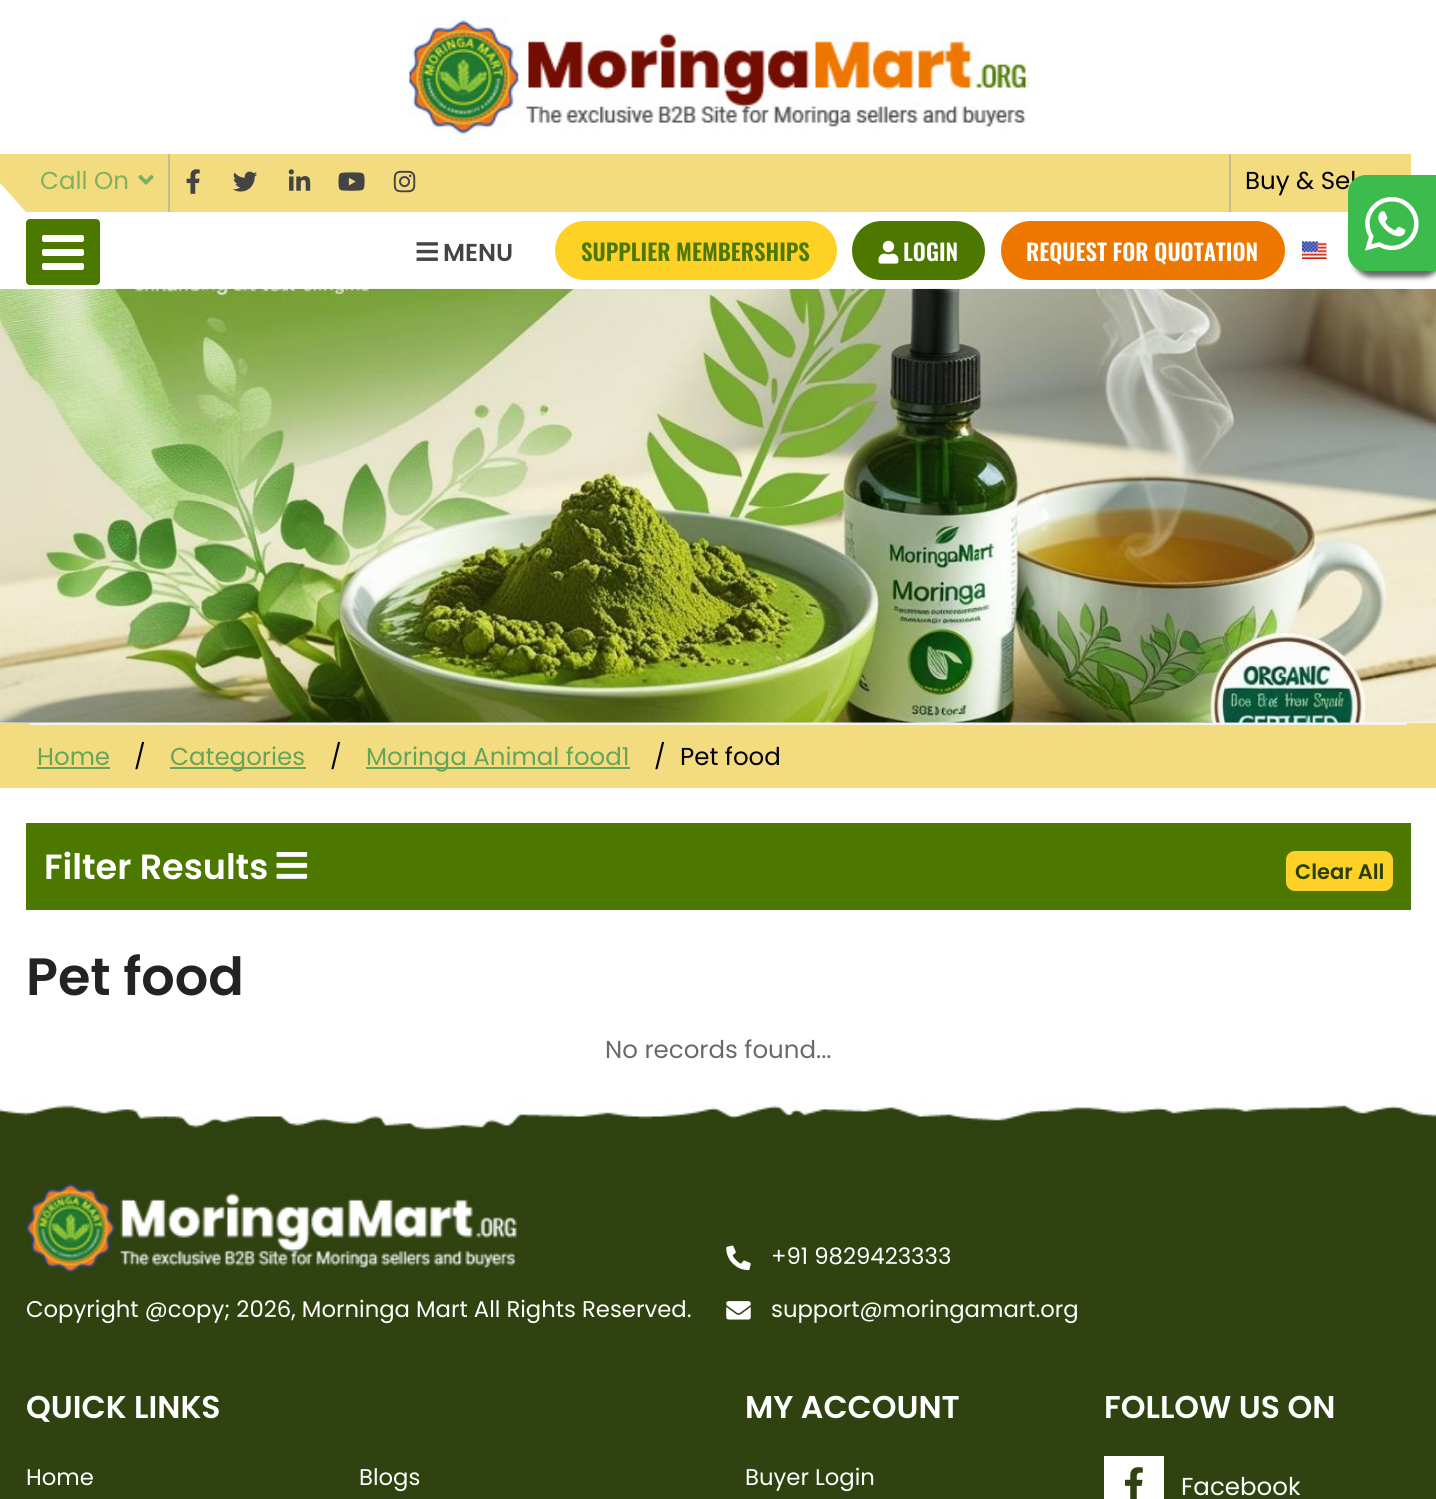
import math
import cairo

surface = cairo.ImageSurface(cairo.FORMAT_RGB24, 1436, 1499)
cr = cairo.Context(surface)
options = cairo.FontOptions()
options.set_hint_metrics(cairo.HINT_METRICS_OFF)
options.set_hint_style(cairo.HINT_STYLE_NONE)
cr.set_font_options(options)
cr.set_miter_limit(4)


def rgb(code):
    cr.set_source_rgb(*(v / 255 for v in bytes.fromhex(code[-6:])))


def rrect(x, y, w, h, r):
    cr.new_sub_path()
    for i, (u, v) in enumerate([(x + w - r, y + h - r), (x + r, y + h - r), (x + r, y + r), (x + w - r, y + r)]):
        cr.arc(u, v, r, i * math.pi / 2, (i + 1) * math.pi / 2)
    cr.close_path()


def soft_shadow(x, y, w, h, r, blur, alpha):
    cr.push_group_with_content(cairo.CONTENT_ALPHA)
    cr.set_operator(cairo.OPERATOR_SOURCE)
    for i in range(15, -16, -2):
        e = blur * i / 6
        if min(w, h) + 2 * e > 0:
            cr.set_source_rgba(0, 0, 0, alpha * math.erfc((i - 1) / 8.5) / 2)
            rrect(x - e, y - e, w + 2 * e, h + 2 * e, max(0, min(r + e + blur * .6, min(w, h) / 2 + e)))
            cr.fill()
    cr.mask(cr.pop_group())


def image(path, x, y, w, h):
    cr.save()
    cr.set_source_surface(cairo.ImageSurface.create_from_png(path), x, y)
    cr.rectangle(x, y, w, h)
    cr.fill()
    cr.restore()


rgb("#ffffff")
cr.paint()
image("img/1.png", 408, 17, 621, 120)
rgb("#f3db80")
cr.rectangle(26, 154, 1385, 58)
cr.fill()
cr.new_path()
cr.move_to(-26, 154)
cr.line_to(26, 154)
cr.line_to(26, 212)
cr.close_path()
cr.fill()
rgb("#c6bb92")
cr.rectangle(168, 154, 2, 58)
cr.fill()
image("img/2.png", 138, 174, 16, 11)
image("img/3.png", 186, 169, 14, 25)
image("img/4.png", 233, 171, 25, 21)
image("img/5.png", 288, 169, 23, 22)
image("img/6.png", 338, 172, 27, 19)
image("img/7.png", 393, 170, 23, 23)
cr.rectangle(1229, 154, 2, 58)
cr.fill()
image("img/8.png", 1379, 174, 12, 1)
image("img/9.png", 416, 242, 22, 19)
rgb("#fed126")
rrect(555, 221, 282, 59, 29.5)
cr.fill()
rgb("#4d7800")
rrect(852, 221, 133, 59, 29.5)
cr.fill()
image("img/10.png", 878, 240, 21, 24)
rgb("#ee7700")
rrect(1001, 221, 284, 59, 29.5)
cr.fill()
image("img/11.png", 1302, 241, 25, 18)
rgb("#4d7800")
rrect(26, 219, 74, 66, 4)
cr.fill()
rgb("#ffffff")
rrect(42, 235, 42, 7, 2)
cr.fill()
rrect(42, 249, 42, 7, 2)
cr.fill()
rrect(42, 263, 42, 7, 2)
cr.fill()
rgb("#666666")
soft_shadow(1353, 180, 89, 97, 18, 2.5, 1)
image("img/13.png", 0, 288, 1436, 435)
for x, y, w, h, color in [
    (0, 723, 1436, 65, "#f3db80"),
    (30, 723, 1377, 2, "#f2f4f4"),
    (37, 767, 73, 2, "#65a559"),
    (170, 767, 136, 2, "#65a559"),
    (366, 767, 264, 2, "#65a559"),
    (26, 823, 1385, 87, "#4d7800"),
]:
    rgb(color)
    cr.rectangle(x, y, w, h)
    cr.fill()
image("img/14.png", 276, 852, 32, 27)
rgb("#fed126")
rrect(1286, 851, 107, 40, 9)
cr.fill()
rgb("#2f4210")
cr.rectangle(0, 1131, 1436, 368)
cr.fill()
image("img/15.png", 0, 1102, 1436, 29)
image("img/16.png", 26, 1181, 491, 93)
image("img/17.png", 726, 1245, 25, 26)
image("img/18.png", 726, 1301, 25, 19)
rgb("#ffffff")
cr.rectangle(1104, 1456, 60, 43)
cr.fill()
image("img/19.png", 1125, 1467, 18, 32)
cr.select_font_face("Poppins")
cr.set_font_size(24.5)
rgb("#7fb061")
cr.move_to(40, 189)
cr.show_text("Call On")
rgb("#000000")
cr.move_to(1245, 189)
cr.show_text("Buy & Sel")
cr.select_font_face("Poppins SemiBold")
rgb("#444444")
cr.move_to(443, 261)
cr.show_text("MENU")
cr.select_font_face("Oswald SemiBold")
cr.set_font_size(22.75)
rgb("#4d7800")
cr.move_to(581, 261)
cr.show_text("SUPPLIER MEMBERSHIPS")
rgb("#ffffff")
cr.move_to(903, 261)
cr.show_text("LOGIN")
cr.move_to(1026, 261)
cr.show_text("REQUEST FOR QUOTATION")
rgb("#3dbc4e")
cr.new_path()
cr.move_to(1366, 175)
cr.line_to(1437, 175)
cr.line_to(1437, 271)
cr.line_to(1366, 271)
cr.curve_to(1356, 271, 1348, 263, 1348, 253)
cr.line_to(1348, 193)
cr.curve_to(1348, 183, 1356, 175, 1366, 175)
cr.close_path()
cr.fill()
image("img/12.png", 1365, 197, 54, 54)
cr.select_font_face("Poppins")
cr.set_font_size(24.5)
rgb("#65a559")
cr.move_to(37, 765)
cr.show_text("Home")
rgb("#000000")
cr.move_to(134, 765)
cr.show_text("/")
rgb("#65a559")
cr.move_to(170, 765)
cr.show_text("Categories")
rgb("#000000")
cr.move_to(330, 765)
cr.show_text("/")
rgb("#65a559")
cr.move_to(366, 765)
cr.show_text("Moringa Animal food1")
rgb("#000000")
cr.move_to(654, 765)
cr.show_text("/")
cr.move_to(680, 765)
cr.show_text("Pet food")
cr.select_font_face("Poppins SemiBold")
cr.set_font_size(35)
rgb("#ffffff")
cr.move_to(44, 879)
cr.show_text("Filter Results")
cr.set_font_size(21)
rgb("#294000")
cr.move_to(1295, 879)
cr.show_text("Clear All")
cr.set_font_size(52.5)
rgb("#232323")
cr.move_to(26, 995)
cr.show_text("Pet food")
cr.select_font_face("Poppins")
cr.set_font_size(24.5)
rgb("#6b6868")
cr.move_to(605, 1058)
cr.show_text("No records found...")
cr.set_font_size(22.75)
rgb("#ffffff")
for x, y, s in [
    (26, 1317, "Copyright @copy; 2026, Morninga Mart All Rights Reserved."),
    (771, 1264, "+91 9829423333"),
    (771, 1317, "support@moringamart.org"),
]:
    cr.move_to(x, y)
    cr.show_text(s)
cr.select_font_face("Poppins SemiBold")
cr.set_font_size(31.5)
cr.move_to(26, 1418)
cr.show_text("QUICK LINKS")
cr.select_font_face("Poppins")
cr.set_font_size(22.75)
cr.move_to(26, 1485)
cr.show_text("Home")
cr.move_to(359, 1485)
cr.show_text("Blogs")
cr.select_font_face("Poppins SemiBold")
cr.set_font_size(31.5)
cr.move_to(745, 1418)
cr.show_text("MY ACCOUNT")
cr.select_font_face("Poppins")
cr.set_font_size(22.75)
cr.move_to(745, 1485)
cr.show_text("Buyer Login")
cr.select_font_face("Poppins SemiBold")
cr.set_font_size(31.5)
cr.move_to(1104, 1418)
cr.show_text("FOLLOW US ON")
cr.select_font_face("Poppins")
cr.set_font_size(24.5)
cr.move_to(1181, 1495)
cr.show_text("Facebook")
surface.write_to_png("page.png")
